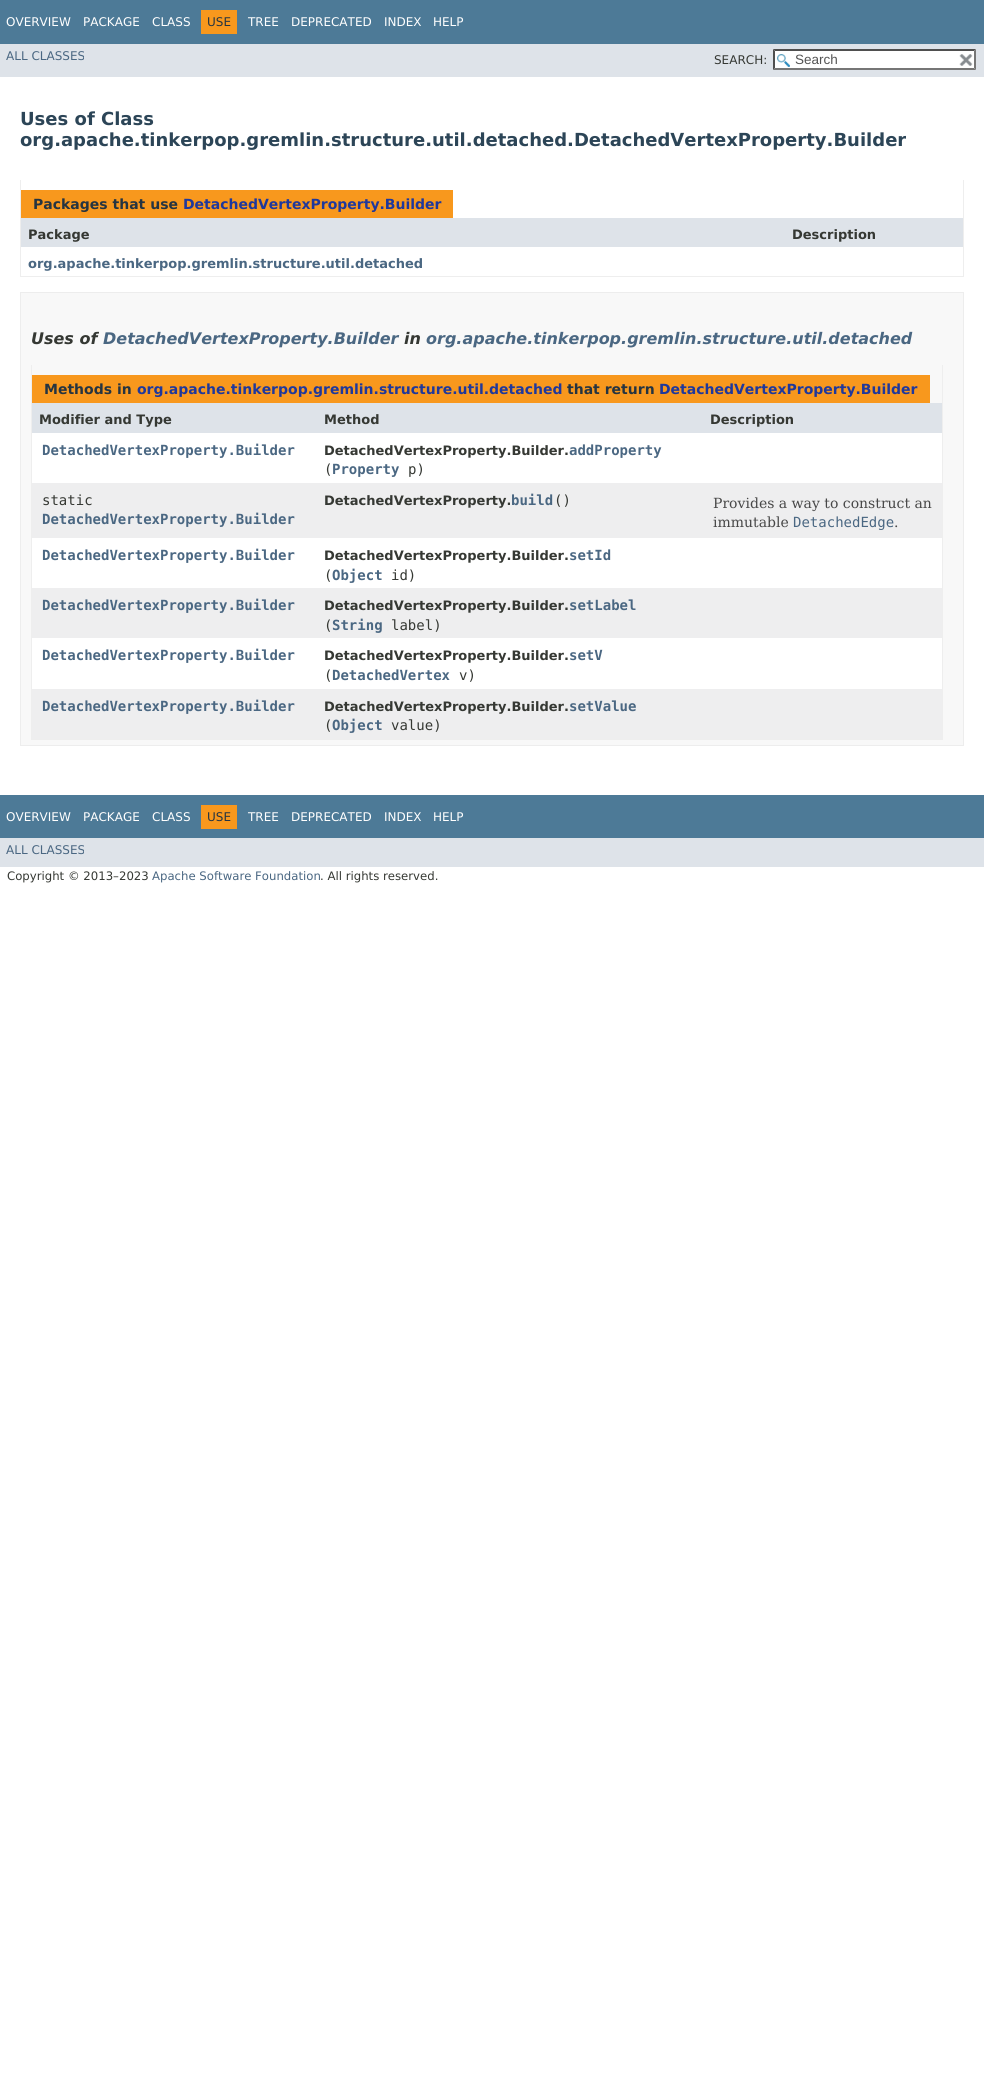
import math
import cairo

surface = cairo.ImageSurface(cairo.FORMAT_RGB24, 984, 2073)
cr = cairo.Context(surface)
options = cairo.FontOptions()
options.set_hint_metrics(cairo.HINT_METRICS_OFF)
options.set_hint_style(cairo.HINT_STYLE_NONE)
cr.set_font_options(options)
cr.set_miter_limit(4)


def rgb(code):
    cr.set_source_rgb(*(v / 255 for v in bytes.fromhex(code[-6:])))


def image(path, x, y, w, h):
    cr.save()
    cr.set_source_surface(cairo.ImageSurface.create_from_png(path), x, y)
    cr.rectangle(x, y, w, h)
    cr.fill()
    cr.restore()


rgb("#ffffff")
cr.paint()
for x, y, w, h, color in [
    (0, 0, 984, 44, "#4d7a97"),
    (201, 10, 36, 24, "#f8981d"),
    (0, 44, 984, 33, "#dee3e9"),
    (773, 49, 203, 21, "#ffffff"),
]:
    rgb(color)
    cr.rectangle(x, y, w, h)
    cr.fill()
image("img/1.png", 777, 54, 13, 13)
rgb("#4f4f4f")
cr.new_path()
cr.move_to(773, 49)
cr.line_to(976, 49)
cr.line_to(974, 51)
cr.line_to(775, 51)
cr.close_path()
cr.fill()
rgb("#767676")
cr.new_path()
cr.move_to(976, 49)
cr.line_to(976, 70)
cr.line_to(974, 68)
cr.line_to(974, 51)
cr.close_path()
cr.fill()
cr.new_path()
cr.move_to(976, 70)
cr.line_to(773, 70)
cr.line_to(775, 68)
cr.line_to(974, 68)
cr.close_path()
cr.fill()
rgb("#4f4f4f")
cr.new_path()
cr.move_to(773, 70)
cr.line_to(773, 49)
cr.line_to(775, 51)
cr.line_to(775, 68)
cr.close_path()
cr.fill()
image("img/2.png", 959, 54, 14, 12)
for x, y, w, h, color in [
    (963, 180, 1, 97, "#eeeeee"),
    (20, 276, 944, 1, "#eeeeee"),
    (20, 180, 1, 97, "#eeeeee"),
    (21, 190, 432, 28, "#f8981d"),
    (21, 218, 942, 29, "#dee3e9"),
]:
    rgb(color)
    cr.rectangle(x, y, w, h)
    cr.fill()
rgb("#f8f8f8")
cr.rectangle(20.5, 292.5, 943, 453)
cr.fill_preserve()
rgb("#ededed")
cr.set_line_width(1)
cr.stroke()
for x, y, w, h, color in [
    (942, 365, 1, 375, "#eeeeee"),
    (31, 739, 912, 1, "#eeeeee"),
    (31, 365, 1, 375, "#eeeeee"),
    (32, 375, 898, 28, "#f8981d"),
    (32, 403, 910, 30, "#dee3e9"),
    (32, 433, 910, 50, "#ffffff"),
    (32, 483, 910, 55, "#eeeeef"),
    (32, 538, 910, 50, "#ffffff"),
    (32, 588, 910, 50, "#eeeeef"),
    (32, 638, 910, 51, "#ffffff"),
    (32, 689, 910, 50, "#eeeeef"),
    (0, 795, 984, 43, "#4d7a97"),
    (201, 805, 36, 24, "#f8981d"),
    (0, 838, 984, 29, "#dee3e9"),
]:
    rgb(color)
    cr.rectangle(x, y, w, h)
    cr.fill()
cr.select_font_face("DejaVu Sans")
cr.set_font_size(12)
rgb("#ffffff")
for x, y, s in [
    (6, 26, "OVERVIEW"),
    (83, 26, "PACKAGE"),
    (152, 26, "CLASS"),
]:
    cr.move_to(x, y)
    cr.show_text(s)
rgb("#253441")
cr.move_to(207, 26)
cr.show_text("USE")
rgb("#ffffff")
for x, y, s in [
    (248, 26, "TREE"),
    (291, 26, "DEPRECATED"),
    (384, 26, "INDEX"),
    (433, 26, "HELP"),
]:
    cr.move_to(x, y)
    cr.show_text(s)
rgb("#4a6782")
cr.move_to(6, 60)
cr.show_text("ALL CLASSES")
rgb("#353833")
cr.move_to(714, 64)
cr.show_text("SEARCH:")
cr.select_font_face("Liberation Sans")
cr.set_font_size(13.5)
rgb("#545454")
cr.move_to(795, 64)
cr.show_text("Search")
cr.select_font_face("DejaVu Sans", cairo.FONT_SLANT_NORMAL, cairo.FONT_WEIGHT_BOLD)
cr.set_font_size(18)
rgb("#2c4557")
cr.move_to(20, 125)
cr.show_text("Uses of Class")
cr.move_to(20, 146)
cr.show_text("org.apache.tinkerpop.gremlin.structure.util.detached.DetachedVertexProperty.Builder")
cr.set_font_size(14)
rgb("#253441")
cr.move_to(33, 209)
cr.show_text("Packages that use")
rgb("#1f389c")
cr.move_to(183, 209)
cr.show_text("DetachedVertexProperty.Builder")
cr.set_font_size(13)
rgb("#353833")
cr.move_to(28, 239)
cr.show_text("Package")
cr.move_to(792, 239)
cr.show_text("Description")
rgb("#4a6782")
cr.move_to(28, 268)
cr.show_text("org.apache.tinkerpop.gremlin.structure.util.detached")
cr.select_font_face("DejaVu Sans", cairo.FONT_SLANT_ITALIC, cairo.FONT_WEIGHT_BOLD)
cr.set_font_size(16)
rgb("#353833")
cr.move_to(31, 344)
cr.show_text("Uses of")
rgb("#4a6782")
cr.move_to(103, 344)
cr.show_text("DetachedVertexProperty.Builder")
rgb("#353833")
cr.move_to(404, 344)
cr.show_text("in")
rgb("#4a6782")
cr.move_to(426, 344)
cr.show_text("org.apache.tinkerpop.gremlin.structure.util.detached")
cr.select_font_face("DejaVu Sans", cairo.FONT_SLANT_NORMAL, cairo.FONT_WEIGHT_BOLD)
cr.set_font_size(14)
rgb("#253441")
cr.move_to(44, 394)
cr.show_text("Methods in")
rgb("#1f389c")
cr.move_to(137, 394)
cr.show_text("org.apache.tinkerpop.gremlin.structure.util.detached")
rgb("#253441")
cr.move_to(567, 394)
cr.show_text("that return")
rgb("#1f389c")
cr.move_to(659, 394)
cr.show_text("DetachedVertexProperty.Builder")
cr.set_font_size(13)
rgb("#353833")
for x, y, s in [
    (39, 424, "Modifier and Type"),
    (324, 424, "Method"),
    (710, 424, "Description"),
]:
    cr.move_to(x, y)
    cr.show_text(s)
cr.select_font_face("DejaVu Sans Mono", cairo.FONT_SLANT_NORMAL, cairo.FONT_WEIGHT_BOLD)
cr.set_font_size(14)
rgb("#4a6782")
cr.move_to(42, 455)
cr.show_text("DetachedVertexProperty.Builder")
cr.select_font_face("DejaVu Sans", cairo.FONT_SLANT_NORMAL, cairo.FONT_WEIGHT_BOLD)
cr.set_font_size(13)
rgb("#353833")
cr.move_to(324, 455)
cr.show_text("DetachedVertexProperty.Builder.")
cr.select_font_face("DejaVu Sans Mono", cairo.FONT_SLANT_NORMAL, cairo.FONT_WEIGHT_BOLD)
cr.set_font_size(14)
rgb("#4a6782")
cr.move_to(569, 455)
cr.show_text("addProperty")
cr.select_font_face("DejaVu Sans Mono")
rgb("#353833")
cr.move_to(324, 474)
cr.show_text("(")
cr.select_font_face("DejaVu Sans Mono", cairo.FONT_SLANT_NORMAL, cairo.FONT_WEIGHT_BOLD)
rgb("#4a6782")
cr.move_to(332, 474)
cr.show_text("Property")
cr.select_font_face("DejaVu Sans Mono")
rgb("#353833")
cr.move_to(408, 474)
cr.show_text("p)")
cr.move_to(42, 505)
cr.show_text("static")
cr.select_font_face("DejaVu Sans Mono", cairo.FONT_SLANT_NORMAL, cairo.FONT_WEIGHT_BOLD)
rgb("#4a6782")
cr.move_to(42, 524)
cr.show_text("DetachedVertexProperty.Builder")
cr.select_font_face("DejaVu Sans", cairo.FONT_SLANT_NORMAL, cairo.FONT_WEIGHT_BOLD)
cr.set_font_size(13)
rgb("#353833")
cr.move_to(324, 505)
cr.show_text("DetachedVertexProperty.")
cr.select_font_face("DejaVu Sans Mono", cairo.FONT_SLANT_NORMAL, cairo.FONT_WEIGHT_BOLD)
cr.set_font_size(14)
rgb("#4a6782")
cr.move_to(511, 505)
cr.show_text("build")
cr.select_font_face("DejaVu Sans Mono")
rgb("#353833")
cr.move_to(554, 505)
cr.show_text("()")
cr.select_font_face("DejaVu Serif")
rgb("#474747")
cr.move_to(713, 508)
cr.show_text("Provides a way to construct an")
cr.move_to(713, 527)
cr.show_text("immutable")
cr.select_font_face("DejaVu Sans Mono")
rgb("#4a6782")
cr.move_to(793, 527)
cr.show_text("DetachedEdge")
cr.select_font_face("DejaVu Serif")
rgb("#474747")
cr.move_to(894, 527)
cr.show_text(".")
cr.select_font_face("DejaVu Sans Mono", cairo.FONT_SLANT_NORMAL, cairo.FONT_WEIGHT_BOLD)
rgb("#4a6782")
cr.move_to(42, 560)
cr.show_text("DetachedVertexProperty.Builder")
cr.select_font_face("DejaVu Sans", cairo.FONT_SLANT_NORMAL, cairo.FONT_WEIGHT_BOLD)
cr.set_font_size(13)
rgb("#353833")
cr.move_to(324, 560)
cr.show_text("DetachedVertexProperty.Builder.")
cr.select_font_face("DejaVu Sans Mono", cairo.FONT_SLANT_NORMAL, cairo.FONT_WEIGHT_BOLD)
cr.set_font_size(14)
rgb("#4a6782")
cr.move_to(569, 560)
cr.show_text("setId")
cr.select_font_face("DejaVu Sans Mono")
rgb("#353833")
cr.move_to(324, 580)
cr.show_text("(")
cr.select_font_face("DejaVu Sans Mono", cairo.FONT_SLANT_NORMAL, cairo.FONT_WEIGHT_BOLD)
rgb("#4a6782")
cr.move_to(332, 580)
cr.show_text("Object")
cr.select_font_face("DejaVu Sans Mono")
rgb("#353833")
cr.move_to(391, 580)
cr.show_text("id)")
cr.select_font_face("DejaVu Sans Mono", cairo.FONT_SLANT_NORMAL, cairo.FONT_WEIGHT_BOLD)
rgb("#4a6782")
cr.move_to(42, 610)
cr.show_text("DetachedVertexProperty.Builder")
cr.select_font_face("DejaVu Sans", cairo.FONT_SLANT_NORMAL, cairo.FONT_WEIGHT_BOLD)
cr.set_font_size(13)
rgb("#353833")
cr.move_to(324, 610)
cr.show_text("DetachedVertexProperty.Builder.")
cr.select_font_face("DejaVu Sans Mono", cairo.FONT_SLANT_NORMAL, cairo.FONT_WEIGHT_BOLD)
cr.set_font_size(14)
rgb("#4a6782")
cr.move_to(569, 610)
cr.show_text("setLabel")
cr.select_font_face("DejaVu Sans Mono")
rgb("#353833")
cr.move_to(324, 630)
cr.show_text("(")
cr.select_font_face("DejaVu Sans Mono", cairo.FONT_SLANT_NORMAL, cairo.FONT_WEIGHT_BOLD)
rgb("#4a6782")
cr.move_to(332, 630)
cr.show_text("String")
cr.select_font_face("DejaVu Sans Mono")
rgb("#353833")
cr.move_to(391, 630)
cr.show_text("label)")
cr.select_font_face("DejaVu Sans Mono", cairo.FONT_SLANT_NORMAL, cairo.FONT_WEIGHT_BOLD)
rgb("#4a6782")
cr.move_to(42, 660)
cr.show_text("DetachedVertexProperty.Builder")
cr.select_font_face("DejaVu Sans", cairo.FONT_SLANT_NORMAL, cairo.FONT_WEIGHT_BOLD)
cr.set_font_size(13)
rgb("#353833")
cr.move_to(324, 660)
cr.show_text("DetachedVertexProperty.Builder.")
cr.select_font_face("DejaVu Sans Mono", cairo.FONT_SLANT_NORMAL, cairo.FONT_WEIGHT_BOLD)
cr.set_font_size(14)
rgb("#4a6782")
cr.move_to(569, 660)
cr.show_text("setV")
cr.select_font_face("DejaVu Sans Mono")
rgb("#353833")
cr.move_to(324, 680)
cr.show_text("(")
cr.select_font_face("DejaVu Sans Mono", cairo.FONT_SLANT_NORMAL, cairo.FONT_WEIGHT_BOLD)
rgb("#4a6782")
cr.move_to(332, 680)
cr.show_text("DetachedVertex")
cr.select_font_face("DejaVu Sans Mono")
rgb("#353833")
cr.move_to(459, 680)
cr.show_text("v)")
cr.select_font_face("DejaVu Sans Mono", cairo.FONT_SLANT_NORMAL, cairo.FONT_WEIGHT_BOLD)
rgb("#4a6782")
cr.move_to(42, 711)
cr.show_text("DetachedVertexProperty.Builder")
cr.select_font_face("DejaVu Sans", cairo.FONT_SLANT_NORMAL, cairo.FONT_WEIGHT_BOLD)
cr.set_font_size(13)
rgb("#353833")
cr.move_to(324, 711)
cr.show_text("DetachedVertexProperty.Builder.")
cr.select_font_face("DejaVu Sans Mono", cairo.FONT_SLANT_NORMAL, cairo.FONT_WEIGHT_BOLD)
cr.set_font_size(14)
rgb("#4a6782")
cr.move_to(569, 711)
cr.show_text("setValue")
cr.select_font_face("DejaVu Sans Mono")
rgb("#353833")
cr.move_to(324, 730)
cr.show_text("(")
cr.select_font_face("DejaVu Sans Mono", cairo.FONT_SLANT_NORMAL, cairo.FONT_WEIGHT_BOLD)
rgb("#4a6782")
cr.move_to(332, 730)
cr.show_text("Object")
cr.select_font_face("DejaVu Sans Mono")
rgb("#353833")
cr.move_to(391, 730)
cr.show_text("value)")
cr.select_font_face("DejaVu Sans")
cr.set_font_size(12)
rgb("#ffffff")
for x, y, s in [
    (6, 821, "OVERVIEW"),
    (83, 821, "PACKAGE"),
    (152, 821, "CLASS"),
]:
    cr.move_to(x, y)
    cr.show_text(s)
rgb("#253441")
cr.move_to(207, 821)
cr.show_text("USE")
rgb("#ffffff")
for x, y, s in [
    (248, 821, "TREE"),
    (291, 821, "DEPRECATED"),
    (384, 821, "INDEX"),
    (433, 821, "HELP"),
]:
    cr.move_to(x, y)
    cr.show_text(s)
rgb("#4a6782")
cr.move_to(6, 854)
cr.show_text("ALL CLASSES")
cr.set_font_size(11.7)
rgb("#353833")
cr.move_to(7, 880)
cr.show_text("Copyright © 2013–2023")
rgb("#4a6782")
cr.move_to(152, 880)
cr.show_text("Apache Software Foundation")
rgb("#353833")
cr.move_to(320, 880)
cr.show_text(". All rights reserved.")
surface.write_to_png("page.png")
